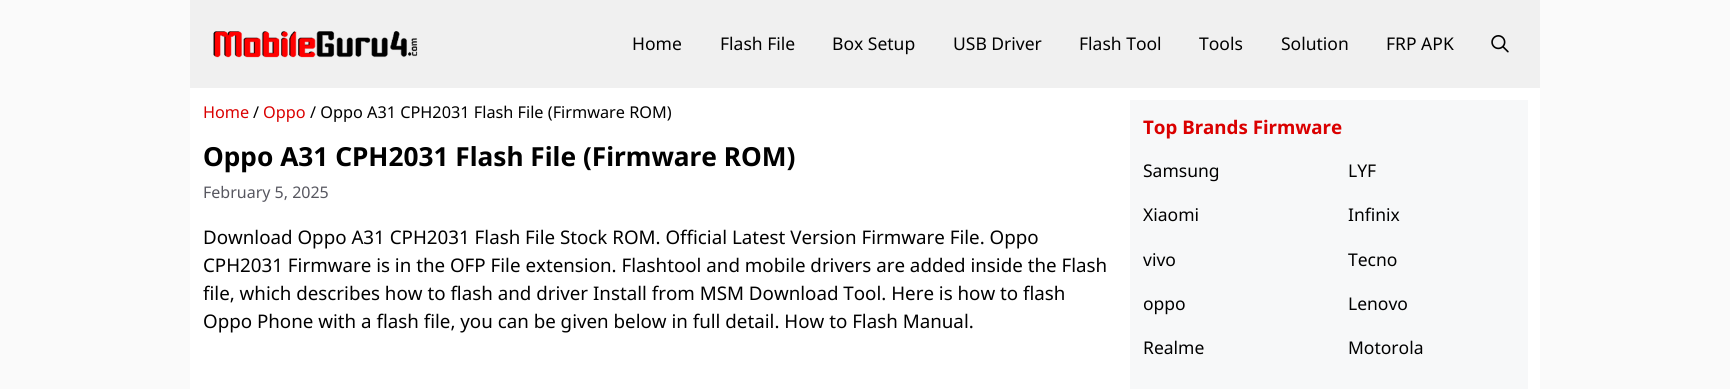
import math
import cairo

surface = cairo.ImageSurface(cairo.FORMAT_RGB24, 1730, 389)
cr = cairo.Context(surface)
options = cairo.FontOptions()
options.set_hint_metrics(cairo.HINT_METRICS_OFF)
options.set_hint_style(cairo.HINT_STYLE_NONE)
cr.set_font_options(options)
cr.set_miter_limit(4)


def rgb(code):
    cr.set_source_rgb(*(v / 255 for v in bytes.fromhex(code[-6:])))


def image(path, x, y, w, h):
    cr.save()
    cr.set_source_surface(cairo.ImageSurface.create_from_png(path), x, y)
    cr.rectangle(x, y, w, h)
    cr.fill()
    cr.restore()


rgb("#fafafa")
cr.paint()
rgb("#f0f0f0")
cr.rectangle(190, 0, 1350, 88)
cr.fill()
image("img/1.png", 213, 31, 205, 27)
image("img/2.png", 1491, 35, 18, 18)
rgb("#ffffff")
cr.rectangle(190, 88, 1350, 301)
cr.fill()
rgb("#f7f8f9")
cr.rectangle(1130, 100, 398, 289)
cr.fill()
cr.select_font_face("Noto Sans")
cr.set_font_size(17.5)
rgb("#000000")
for x, y, s in [
    (632, 50, "Home"),
    (720, 50, "Flash File"),
    (832, 50, "Box Setup"),
    (953, 50, "USB Driver"),
    (1079, 50, "Flash Tool"),
    (1199, 50, "Tools"),
    (1281, 50, "Solution"),
    (1386, 50, "FRP APK"),
]:
    cr.move_to(x, y)
    cr.show_text(s)
cr.set_font_size(16.25)
rgb("#da0000")
cr.move_to(203, 118)
cr.show_text("Home")
rgb("#000000")
cr.move_to(253, 118)
cr.show_text("/")
rgb("#da0000")
cr.move_to(263, 118)
cr.show_text("Oppo")
rgb("#000000")
cr.move_to(310, 118)
cr.show_text("/ Oppo A31 CPH2031 Flash File (Firmware ROM)")
cr.select_font_face("Noto Sans", cairo.FONT_SLANT_NORMAL, cairo.FONT_WEIGHT_BOLD)
cr.set_font_size(26.25)
cr.move_to(203, 166)
cr.show_text("Oppo A31 CPH2031 Flash File (Firmware ROM)")
cr.select_font_face("Noto Sans")
cr.set_font_size(16)
rgb("#575760")
cr.move_to(203, 198)
cr.show_text("February 5, 2025")
cr.set_font_size(18.75)
rgb("#000000")
for x, y, s in [
    (203, 244, "Download Oppo A31 CPH2031 Flash File Stock ROM. Official Latest Version Firmware File. Oppo"),
    (203, 272, "CPH2031 Firmware is in the OFP File extension. Flashtool and mobile drivers are added inside the Flash"),
    (203, 300, "file, which describes how to flash and driver Install from MSM Download Tool. Here is how to flash"),
    (203, 328, "Oppo Phone with a flash file, you can be given below in full detail. How to Flash Manual."),
]:
    cr.move_to(x, y)
    cr.show_text(s)
cr.select_font_face("Noto Sans", cairo.FONT_SLANT_NORMAL, cairo.FONT_WEIGHT_BOLD)
rgb("#da0000")
cr.move_to(1143, 134)
cr.show_text("Top Brands Firmware")
cr.select_font_face("Noto Sans")
cr.set_font_size(17.5)
rgb("#000000")
for x, y, s in [
    (1143, 177, "Samsung"),
    (1143, 221, "Xiaomi"),
    (1143, 266, "vivo"),
    (1143, 310, "oppo"),
    (1143, 354, "Realme"),
    (1348, 177, "LYF"),
    (1348, 221, "Infinix"),
    (1348, 266, "Tecno"),
    (1348, 310, "Lenovo"),
    (1348, 354, "Motorola"),
]:
    cr.move_to(x, y)
    cr.show_text(s)
surface.write_to_png("page.png")
